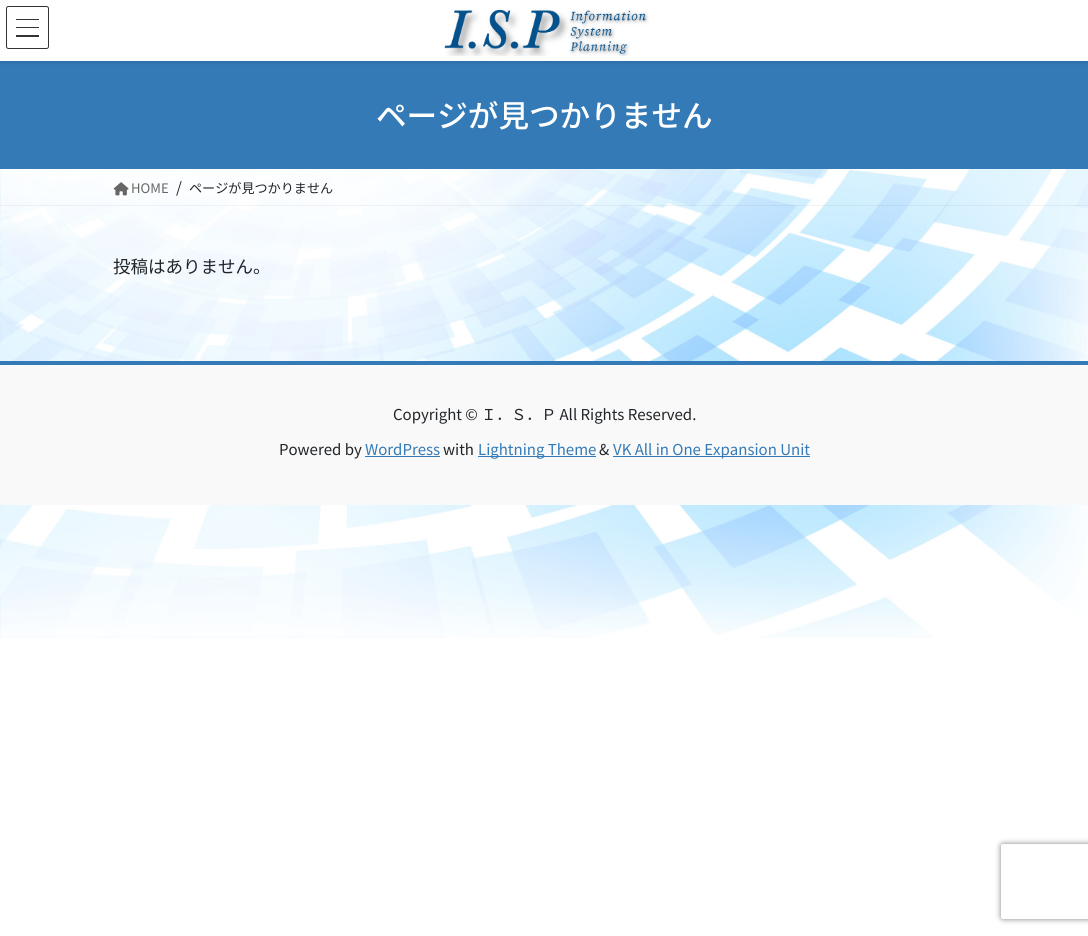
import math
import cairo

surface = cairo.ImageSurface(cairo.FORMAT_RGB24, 1088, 936)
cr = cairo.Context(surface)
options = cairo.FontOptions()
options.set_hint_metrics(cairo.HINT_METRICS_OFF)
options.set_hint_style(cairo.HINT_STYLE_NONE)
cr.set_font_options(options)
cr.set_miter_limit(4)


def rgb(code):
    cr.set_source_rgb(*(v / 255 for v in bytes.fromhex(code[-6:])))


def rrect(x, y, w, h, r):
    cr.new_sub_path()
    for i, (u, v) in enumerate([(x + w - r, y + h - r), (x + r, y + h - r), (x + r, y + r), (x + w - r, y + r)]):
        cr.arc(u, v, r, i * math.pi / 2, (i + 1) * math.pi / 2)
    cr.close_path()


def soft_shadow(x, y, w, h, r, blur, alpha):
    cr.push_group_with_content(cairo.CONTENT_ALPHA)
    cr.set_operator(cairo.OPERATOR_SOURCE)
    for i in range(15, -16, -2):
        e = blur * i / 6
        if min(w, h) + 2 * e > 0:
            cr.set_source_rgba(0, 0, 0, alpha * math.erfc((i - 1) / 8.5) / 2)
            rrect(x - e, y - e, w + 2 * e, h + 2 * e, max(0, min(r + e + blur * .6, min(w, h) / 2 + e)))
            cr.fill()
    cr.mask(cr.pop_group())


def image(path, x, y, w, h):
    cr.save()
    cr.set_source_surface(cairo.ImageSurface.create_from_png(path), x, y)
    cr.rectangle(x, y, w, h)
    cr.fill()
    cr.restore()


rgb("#ffffff")
cr.paint()
image("img/1.png", 0, 169, 1088, 469)
rgb("#337ab7")
cr.rectangle(0, 61, 1088, 108)
cr.fill()
rgb("#000000")
soft_shadow(0, 1, 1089, 62, 0, 2, 0.1)
rgb("#ffffff")
cr.rectangle(0, 0, 1088, 61)
cr.fill()
image("img/2.png", 444, 9, 205, 48)
for x, y, w, h, color in [
    (16, 19, 23, 1, "#333333"),
    (16, 27, 23, 1, "#333333"),
    (16, 35, 23, 2, "#333333"),
]:
    rgb(color)
    cr.rectangle(x, y, w, h)
    cr.fill()
rrect(6.5, 6.5, 42, 42, 2)
cr.set_line_width(1)
cr.stroke()
cr.set_source_rgba(0, 0, 0, 0.05)
cr.rectangle(0, 205, 1088, 1)
cr.fill()
image("img/3.png", 113, 182, 16, 14)
for x, y, w, h, color in [
    (0, 365, 1088, 140, "#f9f9f9"),
    (0, 361, 1088, 4, "#337ab7"),
    (365, 456, 75, 1, "#337ab7"),
    (478, 456, 118, 1, "#337ab7"),
    (613, 456, 197, 1, "#337ab7"),
]:
    rgb(color)
    cr.rectangle(x, y, w, h)
    cr.fill()
cr.save()
cr.set_fill_rule(cairo.FILL_RULE_EVEN_ODD)
cr.new_path()
cr.move_to(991, 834)
cr.line_to(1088, 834)
cr.line_to(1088, 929)
cr.line_to(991, 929)
cr.close_path()
cr.move_to(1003.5, 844)
cr.line_to(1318.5, 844)
cr.curve_to(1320, 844, 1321, 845, 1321, 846.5)
cr.line_to(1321, 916.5)
cr.curve_to(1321, 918, 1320, 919, 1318.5, 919)
cr.line_to(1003.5, 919)
cr.curve_to(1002, 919, 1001, 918, 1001, 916.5)
cr.line_to(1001, 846.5)
cr.curve_to(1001, 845, 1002, 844, 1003.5, 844)
cr.close_path()
cr.clip()
rgb("#808080")
soft_shadow(1001, 844, 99, 75, 2.5, 3, 1)
cr.restore()
cr.select_font_face("Noto Sans JP Medium")
cr.set_font_size(30.6)
rgb("#ffffff")
cr.move_to(376, 127)
cr.show_text("ページが見つかりません")
cr.select_font_face("Noto Sans JP")
cr.set_font_size(13.1)
rgb("#666666")
cr.move_to(131, 193)
cr.show_text("HOME")
cr.set_font_size(15)
rgb("#212529")
cr.move_to(176, 193)
cr.show_text("/")
cr.set_font_size(13.1)
cr.move_to(189, 193)
cr.show_text("ページが見つかりません")
cr.set_font_size(17.5)
cr.move_to(113, 273)
cr.show_text("投稿はありません。")
cr.set_font_size(15)
cr.move_to(393, 420)
cr.show_text("Copyright © Ｉ．Ｓ．Ｐ All Rights Reserved.")
cr.move_to(279, 455)
cr.show_text("Powered by")
rgb("#337ab7")
cr.move_to(365, 455)
cr.show_text("WordPress")
rgb("#212529")
cr.move_to(443, 455)
cr.show_text("with")
rgb("#337ab7")
cr.move_to(478, 455)
cr.show_text("Lightning Theme")
rgb("#212529")
cr.move_to(599, 455)
cr.show_text("&")
rgb("#337ab7")
cr.move_to(613, 455)
cr.show_text("VK All in One Expansion Unit")
surface.write_to_png("page.png")
